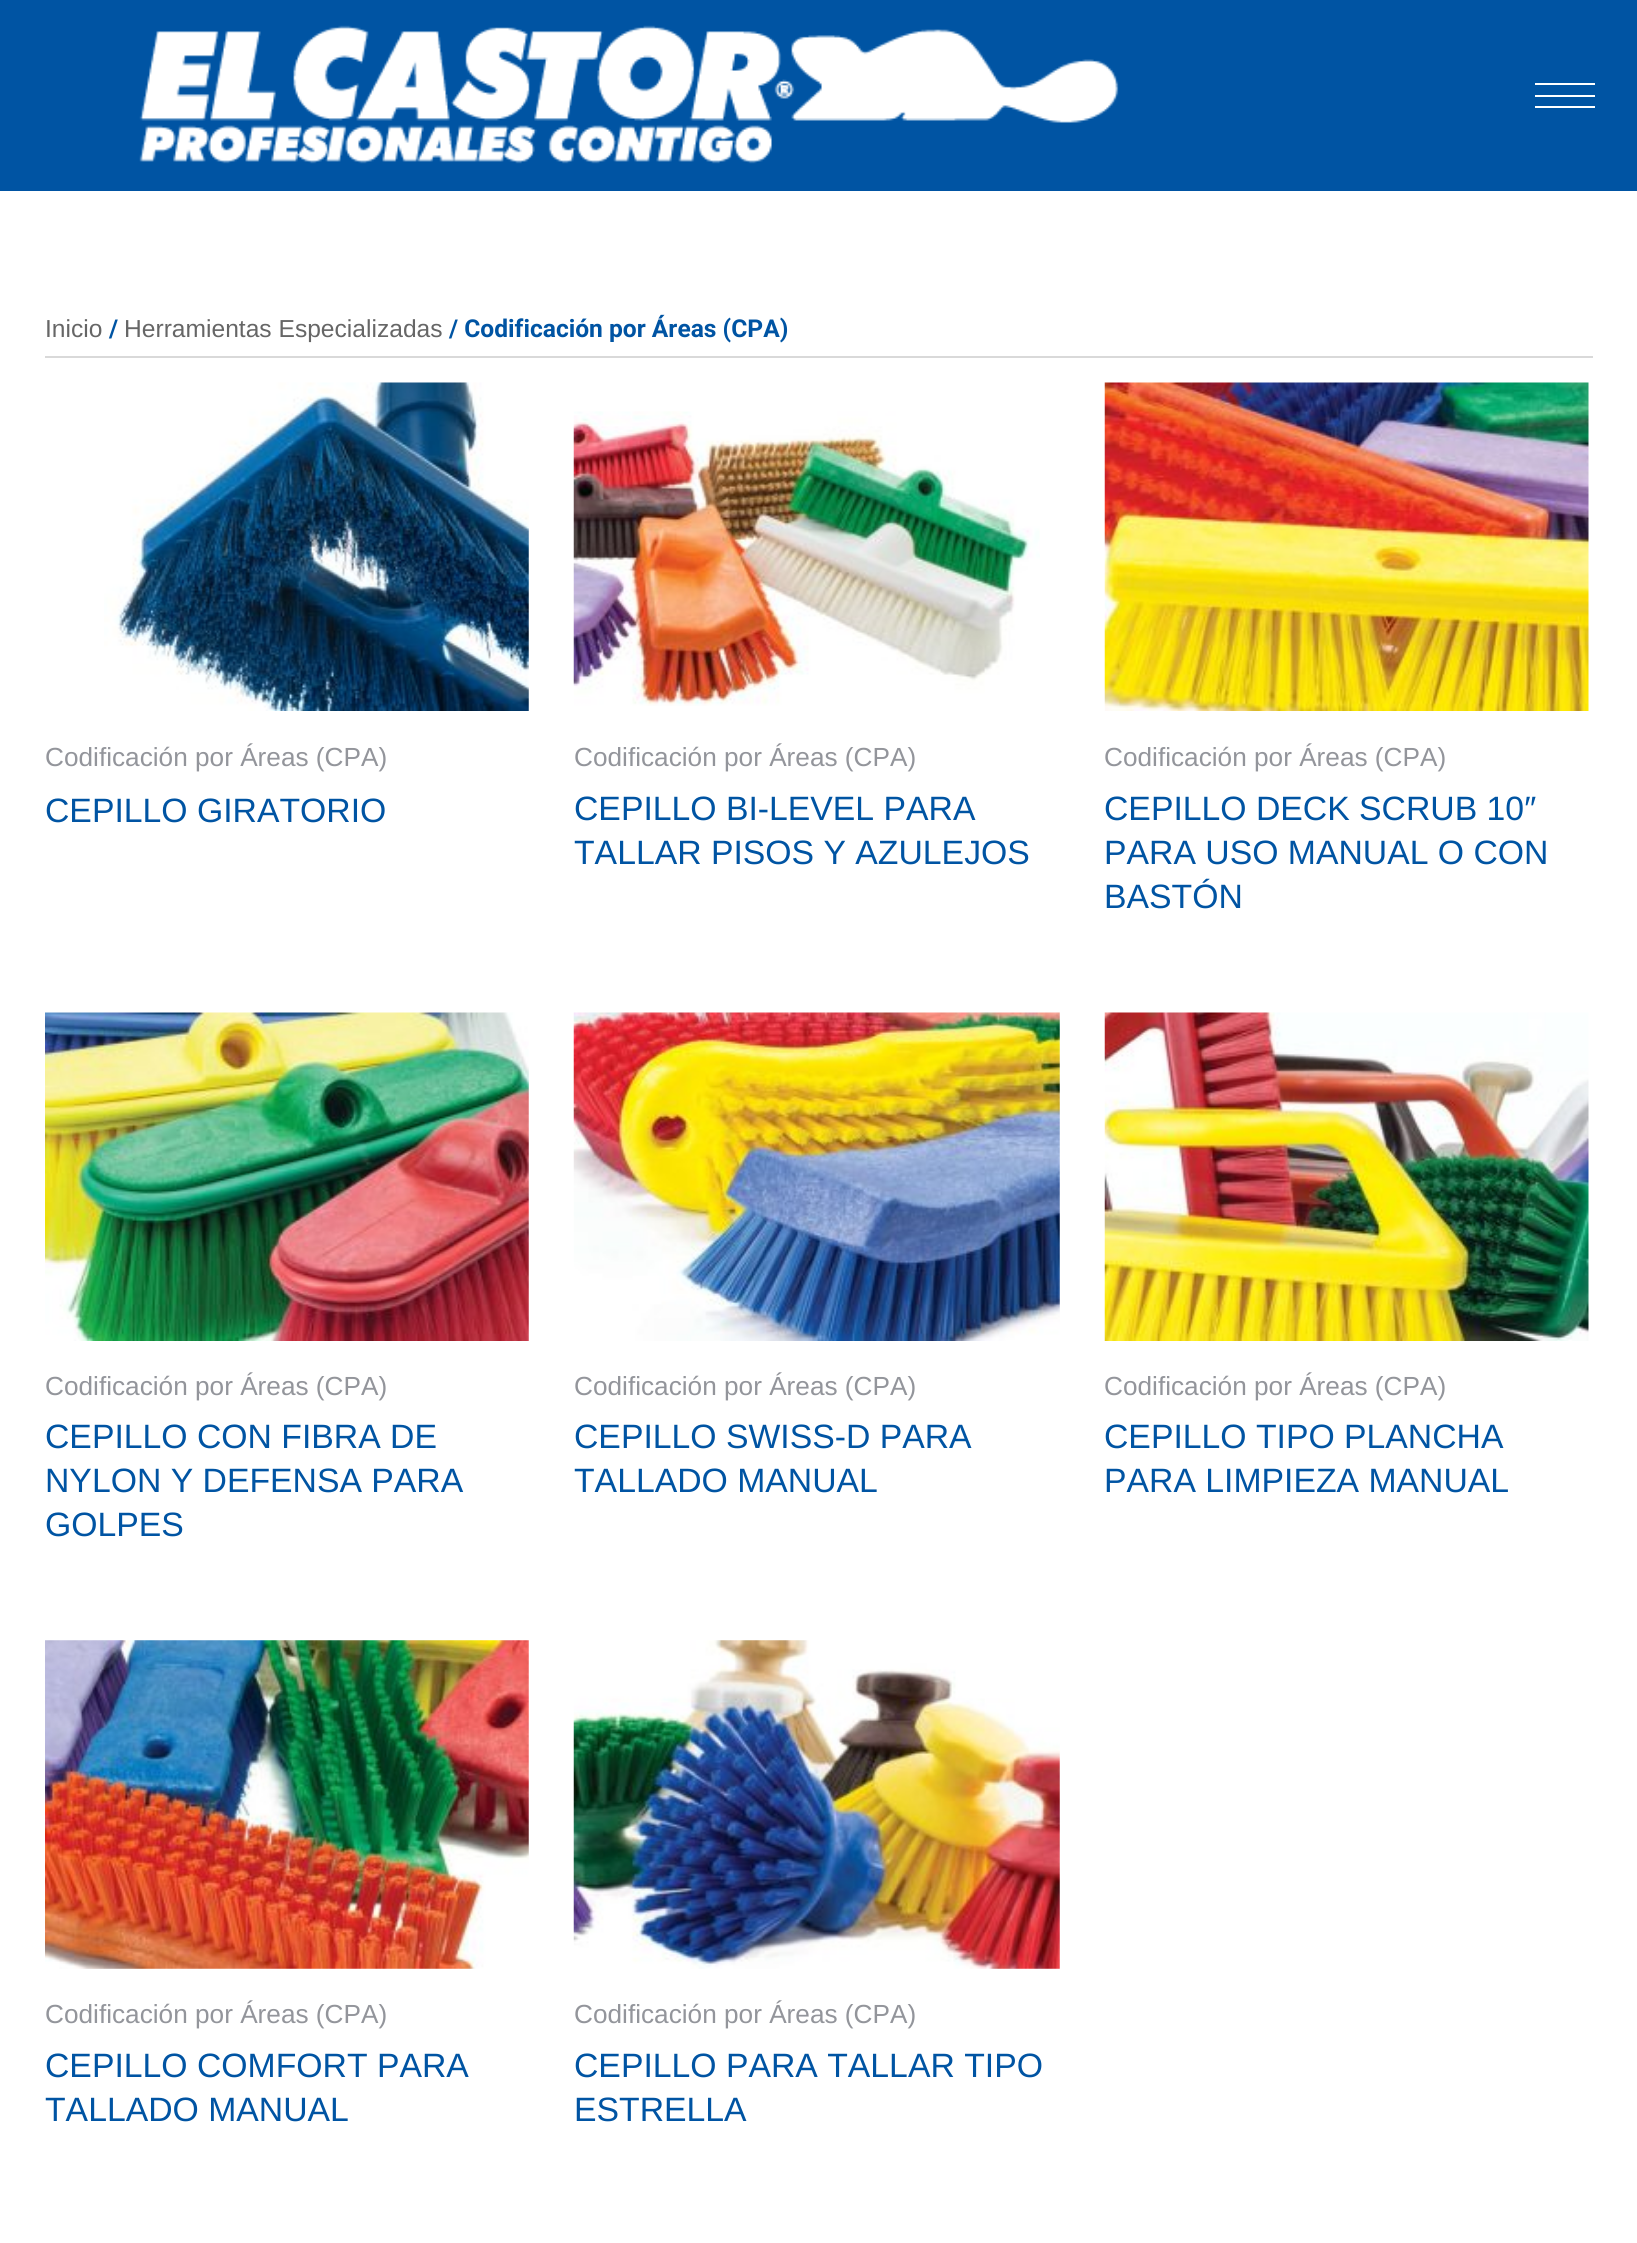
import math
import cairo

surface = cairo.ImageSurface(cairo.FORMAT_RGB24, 1637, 2243)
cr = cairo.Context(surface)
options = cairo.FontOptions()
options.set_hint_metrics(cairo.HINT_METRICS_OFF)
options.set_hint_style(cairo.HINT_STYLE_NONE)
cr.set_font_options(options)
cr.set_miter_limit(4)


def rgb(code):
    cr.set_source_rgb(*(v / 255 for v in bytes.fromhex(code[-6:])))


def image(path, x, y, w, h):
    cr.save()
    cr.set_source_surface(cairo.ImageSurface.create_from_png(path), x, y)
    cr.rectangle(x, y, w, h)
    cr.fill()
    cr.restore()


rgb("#ffffff")
cr.paint()
rgb("#0054a3")
cr.rectangle(0, 0, 1637, 191)
cr.fill()
image("img/1.png", 139, 25, 980, 139)
for x, y, w, h, color in [
    (1535, 83, 60, 2, "#ffffff"),
    (1535, 95, 60, 2, "#ffffff"),
    (1535, 106, 60, 2, "#ffffff"),
    (45, 356, 1548, 2, "#d9d9d9"),
]:
    rgb(color)
    cr.rectangle(x, y, w, h)
    cr.fill()
image("img/2.png", 104, 382, 425, 329)
image("img/3.png", 573, 411, 467, 295)
image("img/4.png", 1104, 382, 485, 329)
image("img/5.png", 45, 1012, 484, 329)
image("img/6.png", 573, 1012, 487, 329)
image("img/7.png", 1104, 1012, 485, 329)
image("img/8.png", 45, 1640, 484, 329)
image("img/9.png", 573, 1640, 487, 329)
cr.select_font_face("Liberation Sans")
cr.set_font_size(24.6)
rgb("#666666")
cr.move_to(45, 337)
cr.show_text("Inicio")
cr.select_font_face("Roboto", cairo.FONT_SLANT_NORMAL, cairo.FONT_WEIGHT_BOLD)
rgb("#0054a3")
cr.move_to(109, 337)
cr.show_text("/")
cr.select_font_face("Liberation Sans")
rgb("#666666")
cr.move_to(124, 337)
cr.show_text("Herramientas Especializadas")
cr.select_font_face("Roboto", cairo.FONT_SLANT_NORMAL, cairo.FONT_WEIGHT_BOLD)
rgb("#0054a3")
cr.move_to(449, 337)
cr.show_text("/ Codificación por Áreas (CPA)")
cr.select_font_face("Liberation Sans")
cr.set_font_size(26.2)
rgb("#93959b")
cr.move_to(45, 766)
cr.show_text("Codificación por Áreas (CPA)")
cr.set_font_size(33.75)
rgb("#0054a3")
cr.move_to(45, 822)
cr.show_text("CEPILLO GIRATORIO")
cr.set_font_size(26.2)
rgb("#93959b")
cr.move_to(574, 766)
cr.show_text("Codificación por Áreas (CPA)")
cr.set_font_size(33.75)
rgb("#0054a3")
cr.move_to(574, 820)
cr.show_text("CEPILLO BI-LEVEL PARA")
cr.move_to(574, 864)
cr.show_text("TALLAR PISOS Y AZULEJOS")
cr.set_font_size(26.2)
rgb("#93959b")
cr.move_to(1104, 766)
cr.show_text("Codificación por Áreas (CPA)")
cr.set_font_size(33.75)
rgb("#0054a3")
for x, y, s in [
    (1104, 820, "CEPILLO DECK SCRUB 10″"),
    (1104, 864, "PARA USO MANUAL O CON"),
    (1104, 908, "BASTÓN"),
]:
    cr.move_to(x, y)
    cr.show_text(s)
cr.set_font_size(26.2)
rgb("#93959b")
cr.move_to(45, 1395)
cr.show_text("Codificación por Áreas (CPA)")
cr.set_font_size(33.75)
rgb("#0054a3")
for x, y, s in [
    (45, 1448, "CEPILLO CON FIBRA DE"),
    (45, 1492, "NYLON Y DEFENSA PARA"),
    (45, 1536, "GOLPES"),
]:
    cr.move_to(x, y)
    cr.show_text(s)
cr.set_font_size(26.2)
rgb("#93959b")
cr.move_to(574, 1395)
cr.show_text("Codificación por Áreas (CPA)")
cr.set_font_size(33.75)
rgb("#0054a3")
cr.move_to(574, 1448)
cr.show_text("CEPILLO SWISS-D PARA")
cr.move_to(574, 1492)
cr.show_text("TALLADO MANUAL")
cr.set_font_size(26.2)
rgb("#93959b")
cr.move_to(1104, 1395)
cr.show_text("Codificación por Áreas (CPA)")
cr.set_font_size(33.75)
rgb("#0054a3")
cr.move_to(1104, 1448)
cr.show_text("CEPILLO TIPO PLANCHA")
cr.move_to(1104, 1492)
cr.show_text("PARA LIMPIEZA MANUAL")
cr.set_font_size(26.2)
rgb("#93959b")
cr.move_to(45, 2023)
cr.show_text("Codificación por Áreas (CPA)")
cr.set_font_size(33.75)
rgb("#0054a3")
cr.move_to(45, 2077)
cr.show_text("CEPILLO COMFORT PARA")
cr.move_to(45, 2121)
cr.show_text("TALLADO MANUAL")
cr.set_font_size(26.2)
rgb("#93959b")
cr.move_to(574, 2023)
cr.show_text("Codificación por Áreas (CPA)")
cr.set_font_size(33.75)
rgb("#0054a3")
cr.move_to(574, 2077)
cr.show_text("CEPILLO PARA TALLAR TIPO")
cr.move_to(574, 2121)
cr.show_text("ESTRELLA")
surface.write_to_png("page.png")
